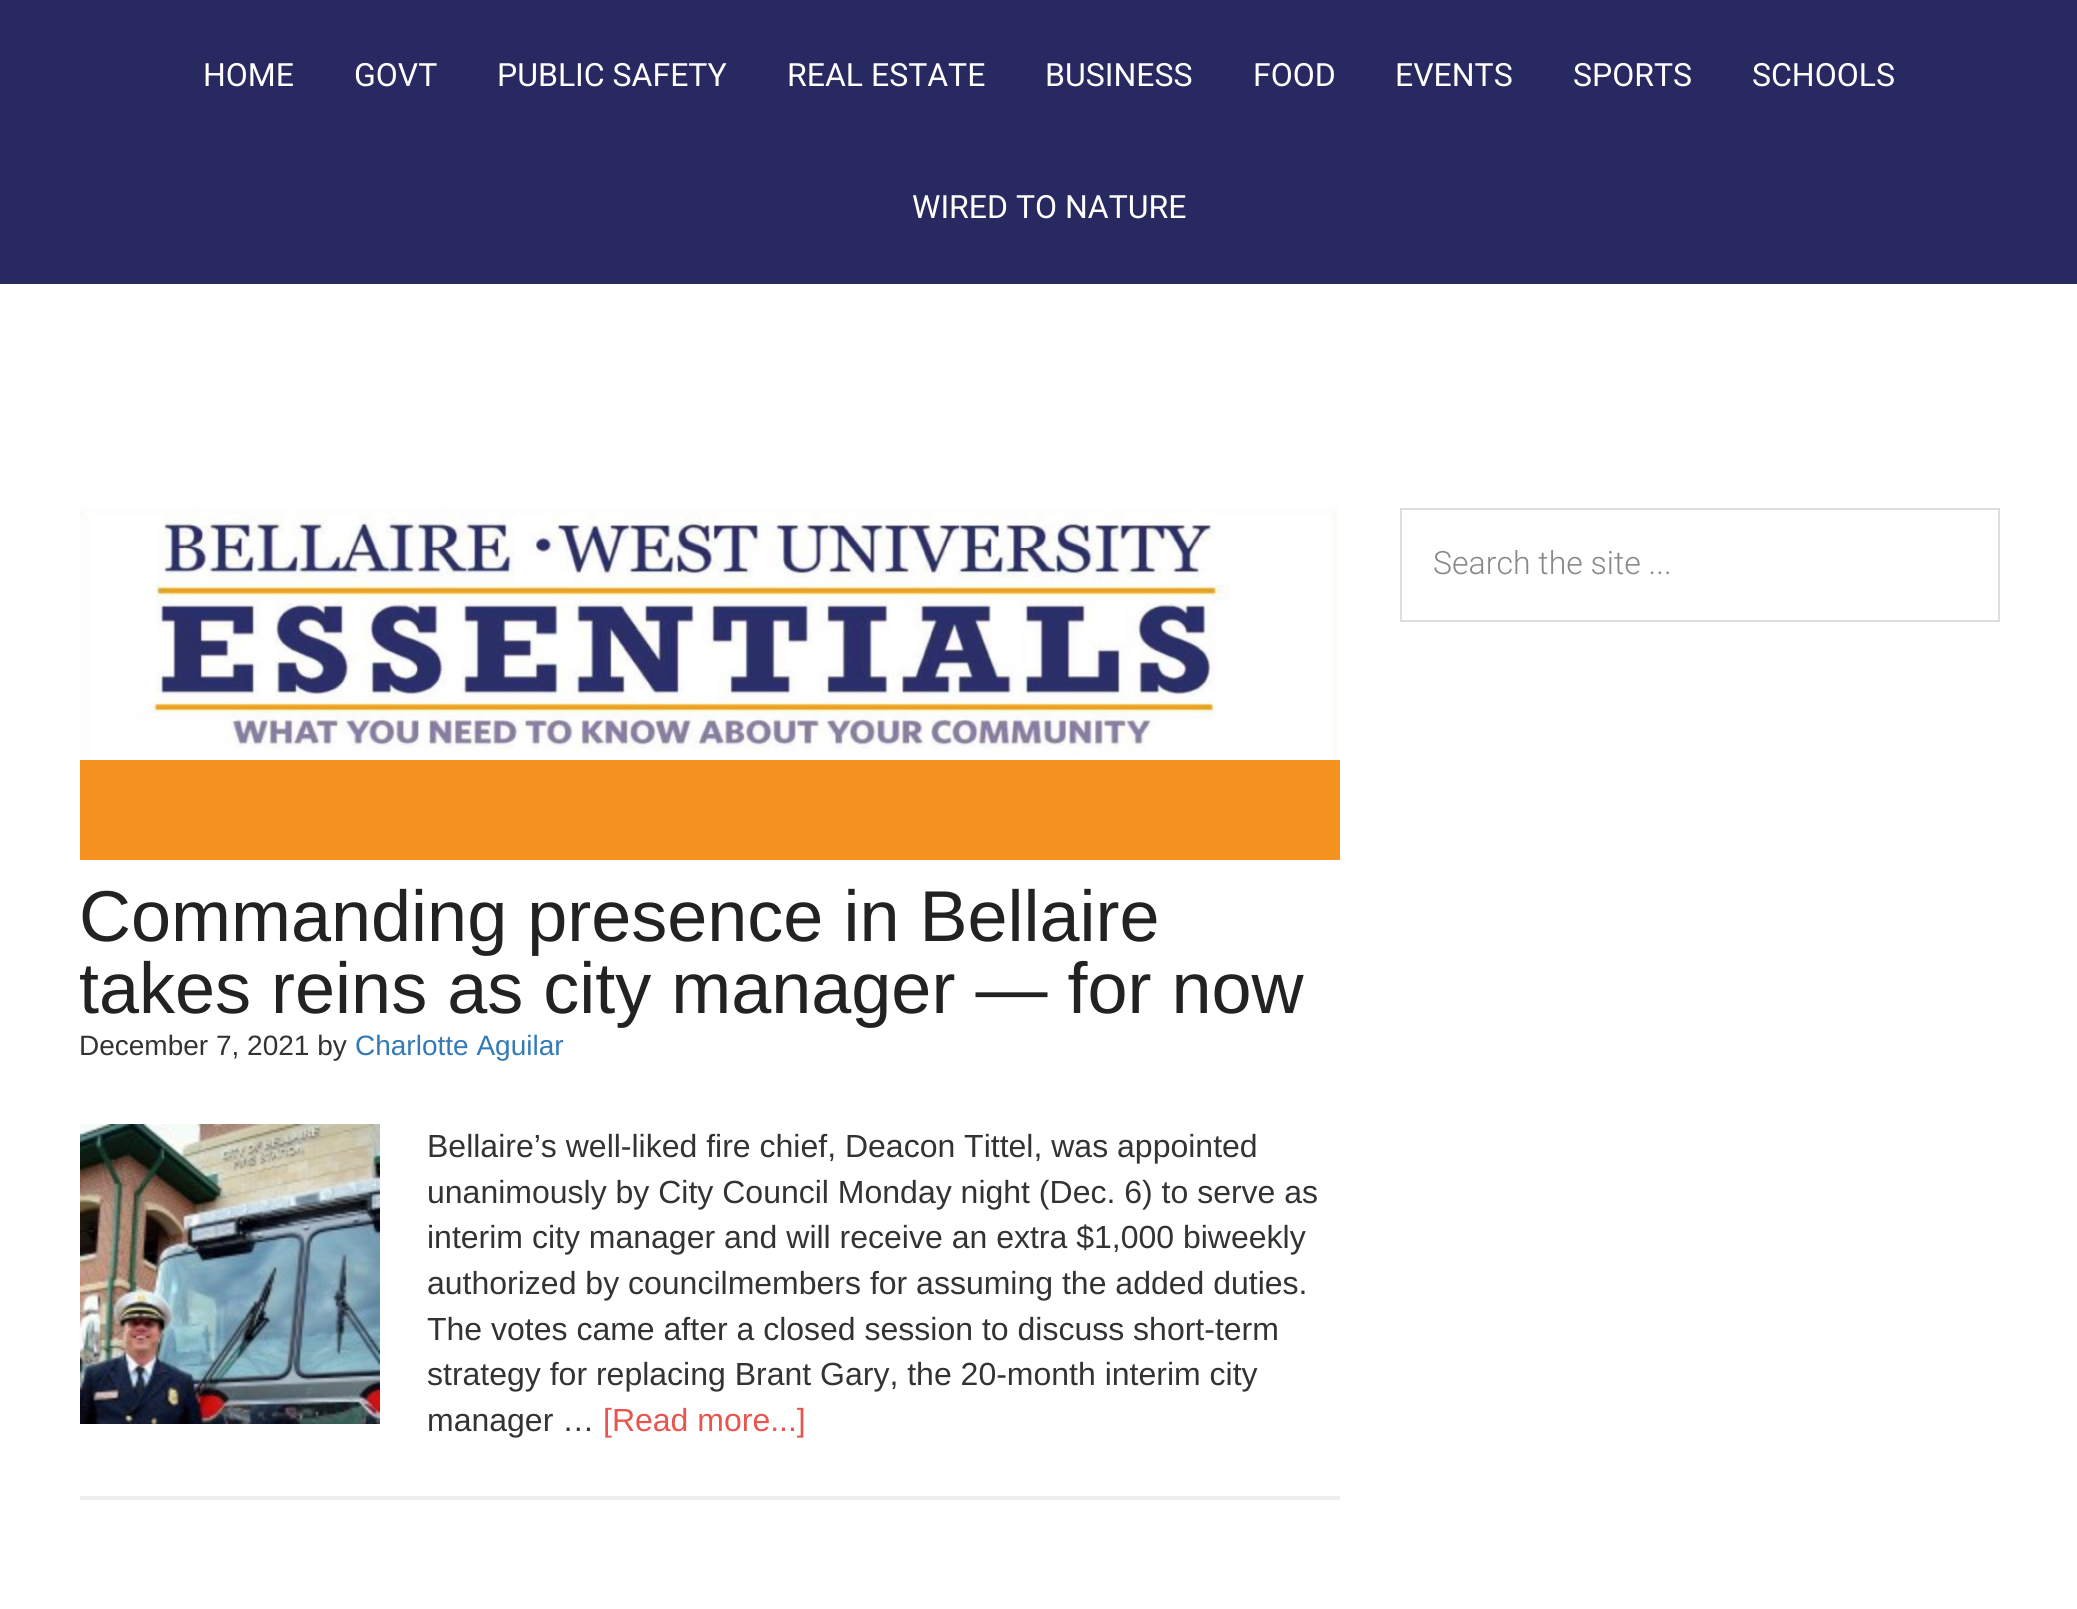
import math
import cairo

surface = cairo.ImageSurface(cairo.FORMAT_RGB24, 2077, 1609)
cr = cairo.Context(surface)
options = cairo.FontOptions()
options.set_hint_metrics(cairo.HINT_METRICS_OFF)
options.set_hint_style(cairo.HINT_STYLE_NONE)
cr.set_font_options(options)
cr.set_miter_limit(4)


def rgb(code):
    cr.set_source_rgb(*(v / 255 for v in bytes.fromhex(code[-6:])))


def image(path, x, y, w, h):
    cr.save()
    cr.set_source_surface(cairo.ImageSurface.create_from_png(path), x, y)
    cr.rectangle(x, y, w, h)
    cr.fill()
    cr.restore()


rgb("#ffffff")
cr.paint()
rgb("#282961")
cr.rectangle(0, 0, 2077, 284)
cr.fill()
cr.rectangle(1401, 509, 598, 112)
rgb("#dddddd")
cr.stroke()
image("img/1.png", 80, 508, 1258, 252)
rgb("#f69220")
cr.rectangle(80, 760, 1260, 100)
cr.fill()
rgb("#eeeeee")
cr.rectangle(80, 1496, 1260, 4)
cr.fill()
image("img/2.png", 80, 1124, 300, 300)
cr.select_font_face("Roboto")
cr.set_font_size(32)
rgb("#ffffff")
for x, y, s in [
    (203, 86, "HOME"),
    (354, 86, "GOVT"),
    (497, 86, "PUBLIC SAFETY"),
    (787, 86, "REAL ESTATE"),
    (1045, 86, "BUSINESS"),
    (1253, 86, "FOOD"),
    (1395, 86, "EVENTS"),
    (1573, 86, "SPORTS"),
    (1752, 86, "SCHOOLS"),
    (912, 218, "WIRED TO NATURE"),
]:
    cr.move_to(x, y)
    cr.show_text(s)
cr.select_font_face("Roboto Light")
rgb("#888888")
cr.move_to(1433, 574)
cr.show_text("Search the site ...")
cr.select_font_face("Liberation Sans")
cr.set_font_size(72)
rgb("#222222")
cr.move_to(79, 941)
cr.show_text("Commanding presence in Bellaire")
cr.move_to(79, 1013)
cr.show_text("takes reins as city manager — for now")
cr.set_font_size(28)
rgb("#333333")
cr.move_to(79, 1055)
cr.show_text("December 7, 2021 by")
rgb("#337ab7")
cr.move_to(355, 1055)
cr.show_text("Charlotte Aguilar")
cr.set_font_size(32)
rgb("#333333")
for x, y, s in [
    (427, 1157, "Bellaire’s well-liked fire chief, Deacon Tittel, was appointed"),
    (427, 1203, "unanimously by City Council Monday night (Dec. 6) to serve as"),
    (427, 1248, "interim city manager and will receive an extra $1,000 biweekly"),
    (427, 1294, "authorized by councilmembers for assuming the added duties."),
    (427, 1340, "The votes came after a closed session to discuss short-term"),
    (427, 1385, "strategy for replacing Brant Gary, the 20-month interim city"),
    (427, 1431, "manager …"),
]:
    cr.move_to(x, y)
    cr.show_text(s)
rgb("#e8554e")
cr.move_to(603, 1431)
cr.show_text("[Read more...]")
surface.write_to_png("page.png")
